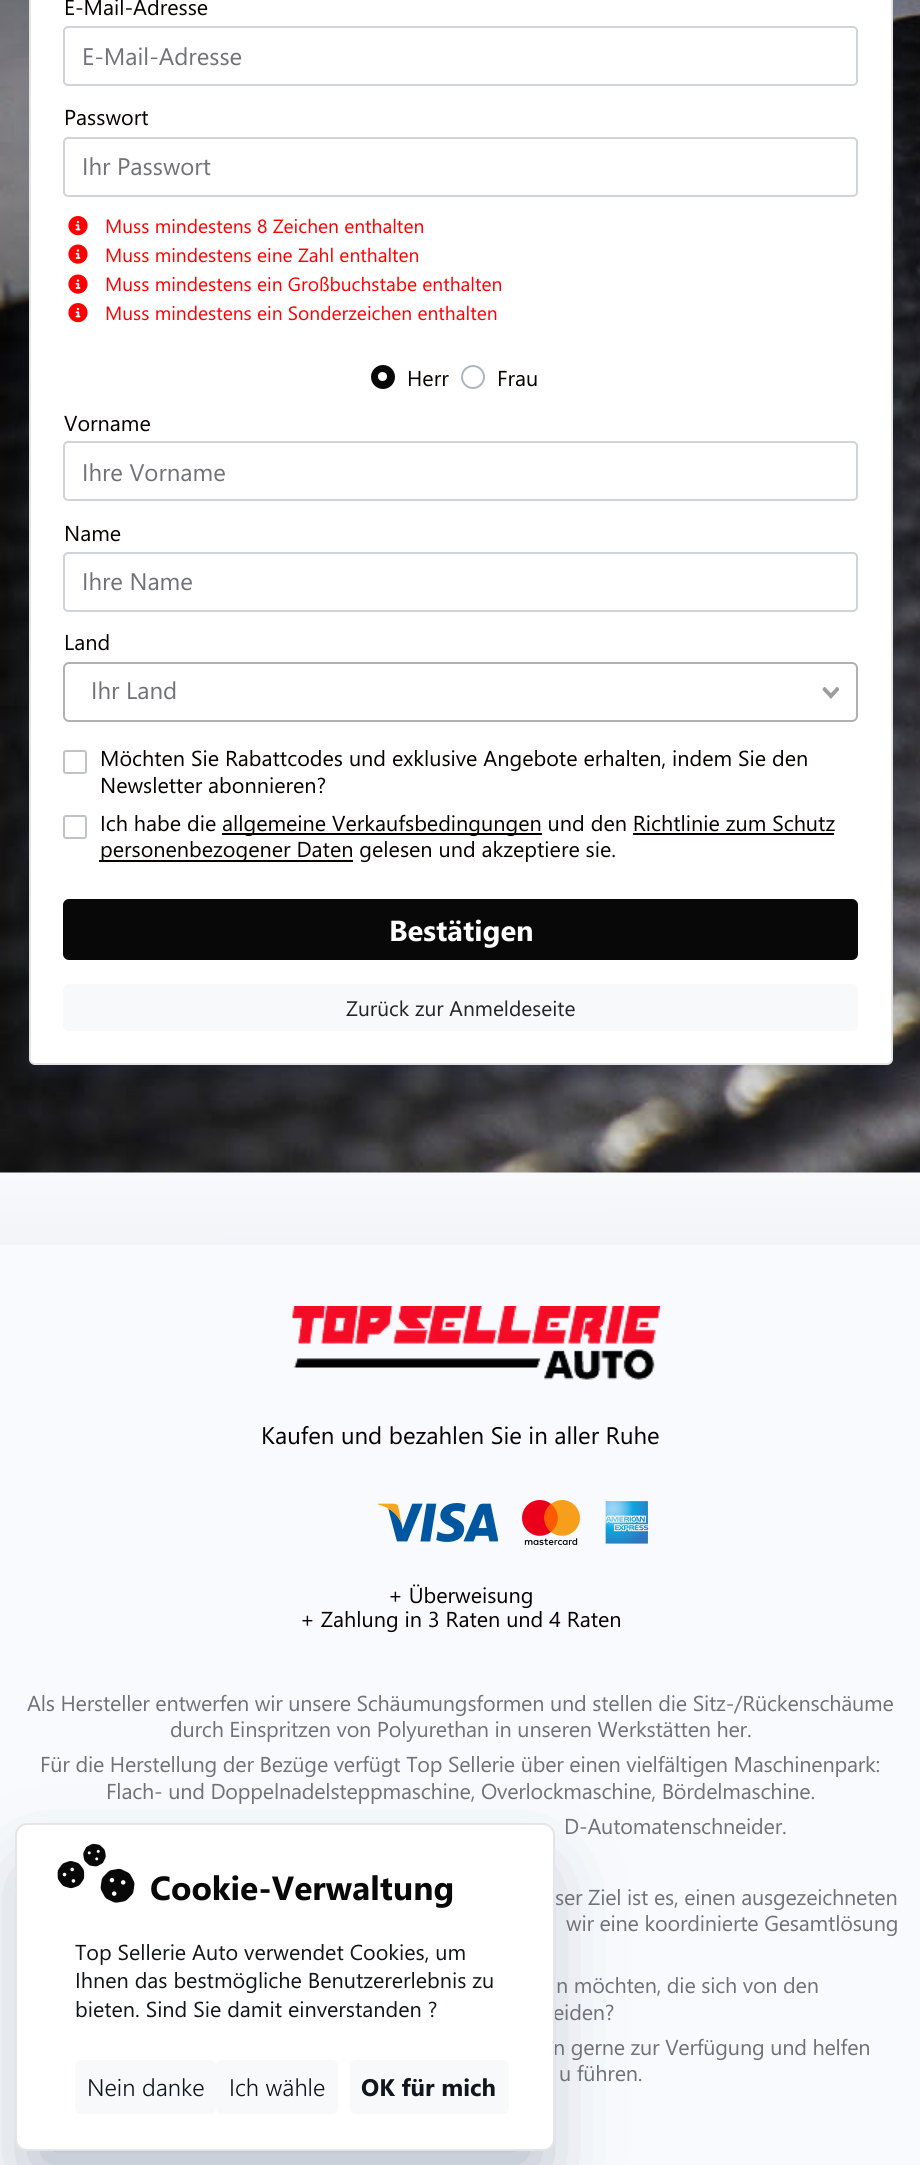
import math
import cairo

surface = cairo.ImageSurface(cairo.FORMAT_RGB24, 920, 2165)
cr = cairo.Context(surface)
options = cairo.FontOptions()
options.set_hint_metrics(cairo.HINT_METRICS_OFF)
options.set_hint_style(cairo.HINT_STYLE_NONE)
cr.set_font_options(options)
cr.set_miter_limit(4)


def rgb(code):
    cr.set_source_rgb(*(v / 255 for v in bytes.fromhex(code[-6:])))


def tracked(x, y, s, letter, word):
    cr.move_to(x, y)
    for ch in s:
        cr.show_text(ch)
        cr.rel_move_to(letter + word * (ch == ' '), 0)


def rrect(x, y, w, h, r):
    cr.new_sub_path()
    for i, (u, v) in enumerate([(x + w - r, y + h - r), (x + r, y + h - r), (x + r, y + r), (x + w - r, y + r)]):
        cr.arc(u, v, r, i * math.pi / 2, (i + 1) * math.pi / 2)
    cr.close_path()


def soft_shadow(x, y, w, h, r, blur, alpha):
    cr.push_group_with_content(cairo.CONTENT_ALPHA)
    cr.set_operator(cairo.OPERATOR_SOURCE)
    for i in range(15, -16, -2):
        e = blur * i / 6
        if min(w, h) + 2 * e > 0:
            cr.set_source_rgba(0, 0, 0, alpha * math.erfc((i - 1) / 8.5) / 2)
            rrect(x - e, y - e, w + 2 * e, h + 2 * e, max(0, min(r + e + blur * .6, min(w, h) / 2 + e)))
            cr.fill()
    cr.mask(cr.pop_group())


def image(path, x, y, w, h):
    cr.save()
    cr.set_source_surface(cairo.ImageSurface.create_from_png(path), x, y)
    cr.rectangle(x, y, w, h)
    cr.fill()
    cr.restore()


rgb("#ffffff")
cr.paint()
gradient = cairo.LinearGradient(460, -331, 461, 1245)
gradient.add_color_stop_rgba(0, 1, 1, 1, 1)
gradient.add_color_stop_rgba(0.9, 1, 1, 1, 1)
gradient.add_color_stop_rgba(1, 0.949, 0.957, 0.976, 1)
cr.set_source(gradient)
cr.rectangle(0, 1172, 920, 73)
cr.fill()
image("img/1.png", 0, 0, 920, 1173)
rgb("#4565ad")
soft_shadow(29, -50, 864, 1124, 6, 14.5, 0.12)
rgb("#ffffff")
rrect(30, -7, 862, 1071, 5)
cr.fill_preserve()
rgb("#e5e5e5")
cr.stroke()
rrect(64, 27, 793, 58, 4)
rgb("#ced4da")
cr.stroke()
rrect(64, 138, 793, 58, 4)
cr.stroke()
image("img/2.png", 68, 216, 20, 20)
image("img/3.png", 68, 244, 20, 20)
image("img/3.png", 68, 274, 20, 20)
image("img/2.png", 68, 303, 20, 20)
rgb("#080808")
cr.arc(383, 377, 11, 0, 2 * math.pi)
cr.fill_preserve()
cr.stroke()
rgb("#ffffff")
cr.arc(382.5, 376.5, 4.5, 0, 2 * math.pi)
cr.fill()
cr.arc(473, 377, 11, 0, 2 * math.pi)
rgb("#adb5bd")
cr.stroke()
rrect(64, 442, 793, 58, 4)
rgb("#ced4da")
cr.stroke()
rrect(64, 553, 793, 58, 4)
cr.stroke()
rrect(64, 663, 793, 58, 5)
rgb("#b1b1b1")
cr.stroke()
image("img/4.png", 822, 687, 17, 12)
rrect(64, 751, 22, 22, 2)
rgb("#bfc3c7")
cr.stroke()
rrect(64, 816, 22, 22, 2)
cr.stroke()
for x, y, w, h, color in [
    (222, 833, 320, 2, "#080000"),
    (633, 833, 201, 2, "#080000"),
    (99, 860, 254, 2, "#080000"),
]:
    rgb(color)
    cr.rectangle(x, y, w, h)
    cr.fill()
rgb("#080808")
rrect(63, 899, 795, 61, 6)
cr.fill()
rgb("#f8f9fa")
rrect(63, 984, 795, 47, 6)
cr.fill()
rgb("#f8fafd")
cr.rectangle(0, 1245, 920, 920)
cr.fill()
image("img/5.png", 292, 1306, 368, 74)
image("img/6.png", 378, 1503, 120, 39)
image("img/7.png", 522, 1500, 58, 45)
image("img/8.png", 605, 1501, 44, 43)
rgb("#64748b")
soft_shadow(33, 1878, 504, 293, 0, 37.5, 0.5)
cr.select_font_face("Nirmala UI")
cr.set_font_size(21.6)
rgb("#080000")
cr.move_to(64, 15)
cr.show_text("E-Mail-Adresse")
cr.set_font_size(24)
rgb("#71717a")
cr.move_to(82, 65)
cr.show_text("E-Mail-Adresse")
cr.set_font_size(21.6)
rgb("#080000")
cr.move_to(64, 125)
cr.show_text("Passwort")
cr.set_font_size(24)
rgb("#71717a")
cr.move_to(82, 175)
cr.show_text("Ihr Passwort")
cr.set_font_size(19.2)
rgb("#ff0000")
for x, y, s in [
    (105, 233, "Muss mindestens 8 Zeichen enthalten"),
    (105, 262, "Muss mindestens eine Zahl enthalten"),
    (105, 291, "Muss mindestens ein Großbuchstabe enthalten"),
    (105, 320, "Muss mindestens ein Sonderzeichen enthalten"),
]:
    cr.move_to(x, y)
    cr.show_text(s)
cr.set_font_size(21.6)
rgb("#080000")
for x, y, s in [
    (407, 386, "Herr"),
    (497, 386, "Frau"),
    (64, 431, "Vorname"),
]:
    cr.move_to(x, y)
    cr.show_text(s)
cr.set_font_size(24)
rgb("#71717a")
cr.move_to(82, 481)
cr.show_text("Ihre Vorname")
cr.set_font_size(21.6)
rgb("#080000")
cr.move_to(64, 541)
cr.show_text("Name")
cr.set_font_size(24)
rgb("#71717a")
cr.move_to(82, 590)
cr.show_text("Ihre Name")
cr.set_font_size(21.6)
rgb("#080000")
cr.move_to(64, 650)
cr.show_text("Land")
cr.set_font_size(24)
rgb("#71717a")
cr.move_to(91, 699)
cr.show_text("Ihr Land")
cr.set_font_size(21.6)
rgb("#080000")
for x, y, s in [
    (100, 766, "Möchten Sie Rabattcodes und exklusive Angebote erhalten, indem Sie den"),
    (100, 793, "Newsletter abonnieren?"),
    (100, 831, "Ich habe die"),
    (222, 831, "allgemeine Verkaufsbedingungen und den Richtlinie zum Schutz"),
    (100, 857, "personenbezogener Daten gelesen und akzeptiere sie."),
]:
    cr.move_to(x, y)
    cr.show_text(s)
cr.select_font_face("Nirmala UI", cairo.FONT_SLANT_NORMAL, cairo.FONT_WEIGHT_BOLD)
cr.set_font_size(29)
rgb("#ffffff")
cr.move_to(389, 941)
cr.show_text("Bestätigen")
cr.select_font_face("Nirmala UI")
cr.set_font_size(21)
rgb("#212529")
cr.move_to(346, 1016)
cr.show_text("Zurück zur Anmeldeseite")
cr.set_font_size(24)
rgb("#080000")
cr.move_to(261, 1444)
cr.show_text("Kaufen und bezahlen Sie in aller Ruhe")
cr.set_font_size(21.6)
cr.move_to(388, 1603)
cr.show_text("+ Überweisung")
cr.move_to(300, 1627)
cr.show_text("+ Zahlung in 3 Raten und 4 Raten")
rgb("#71717a")
for x, y, s in [
    (27, 1711, "Als Hersteller entwerfen wir unsere Schäumungsformen und stellen die Sitz-/Rückenschäume"),
    (170, 1737, "durch Einspritzen von Polyurethan in unseren Werkstätten her."),
    (40, 1772, "Für die Herstellung der Bezüge verfügt Top Sellerie über einen vielfältigen Maschinenpark:"),
    (106, 1799, "Flach- und Doppelnadelsteppmaschine, Overlockmaschine, Bördelmaschine."),
    (564, 1834, "D-Automatenschneider."),
    (555, 1905, "ser Ziel ist es, einen ausgezeichneten"),
    (566, 1931, "wir eine koordinierte Gesamtlösung"),
    (556, 1993, "n möchten, die sich von den"),
    (553, 2020, "eiden?"),
    (553, 2055, "n gerne zur Verfügung und helfen"),
    (559, 2081, "u führen."),
]:
    tracked(x, y, s, -0.2, 0)
rgb("#ffffff")
rrect(16, 1824, 538, 326, 11)
cr.fill_preserve()
rgb("#e5e5e5")
cr.stroke()
image("img/9.png", 83, 1843, 23, 24)
image("img/10.png", 57, 1861, 28, 28)
image("img/11.png", 100, 1868, 35, 35)
cr.select_font_face("Nirmala UI", cairo.FONT_SLANT_NORMAL, cairo.FONT_WEIGHT_BOLD)
cr.set_font_size(33.5)
rgb("#080808")
cr.move_to(150, 1900)
cr.show_text("Cookie-Verwaltung")
cr.select_font_face("Nirmala UI")
cr.set_font_size(21.6)
rgb("#11161c")
for x, y, s in [
    (75, 1960, "Top Sellerie Auto verwendet Cookies, um"),
    (75, 1988, "Ihnen das bestmögliche Benutzererlebnis zu"),
    (75, 2017, "bieten. Sind Sie damit einverstanden ?"),
]:
    cr.move_to(x, y)
    cr.show_text(s)
rgb("#f8f9fa")
rrect(75, 2060, 141, 54, 6)
cr.fill()
cr.select_font_face("Nirmala UI Light")
cr.set_font_size(24)
rgb("#11161c")
cr.move_to(87, 2096)
cr.show_text("Nein danke")
rgb("#f8f9fa")
rrect(216, 2060, 122, 54, 6)
cr.fill()
rgb("#11161c")
cr.move_to(229, 2096)
cr.show_text("Ich wähle")
rgb("#f8f9fa")
rrect(350, 2060, 159, 54, 6)
cr.fill()
cr.select_font_face("Nirmala UI", cairo.FONT_SLANT_NORMAL, cairo.FONT_WEIGHT_BOLD)
rgb("#11161c")
cr.move_to(361, 2096)
cr.show_text("OK für mich")
surface.write_to_png("page.png")
